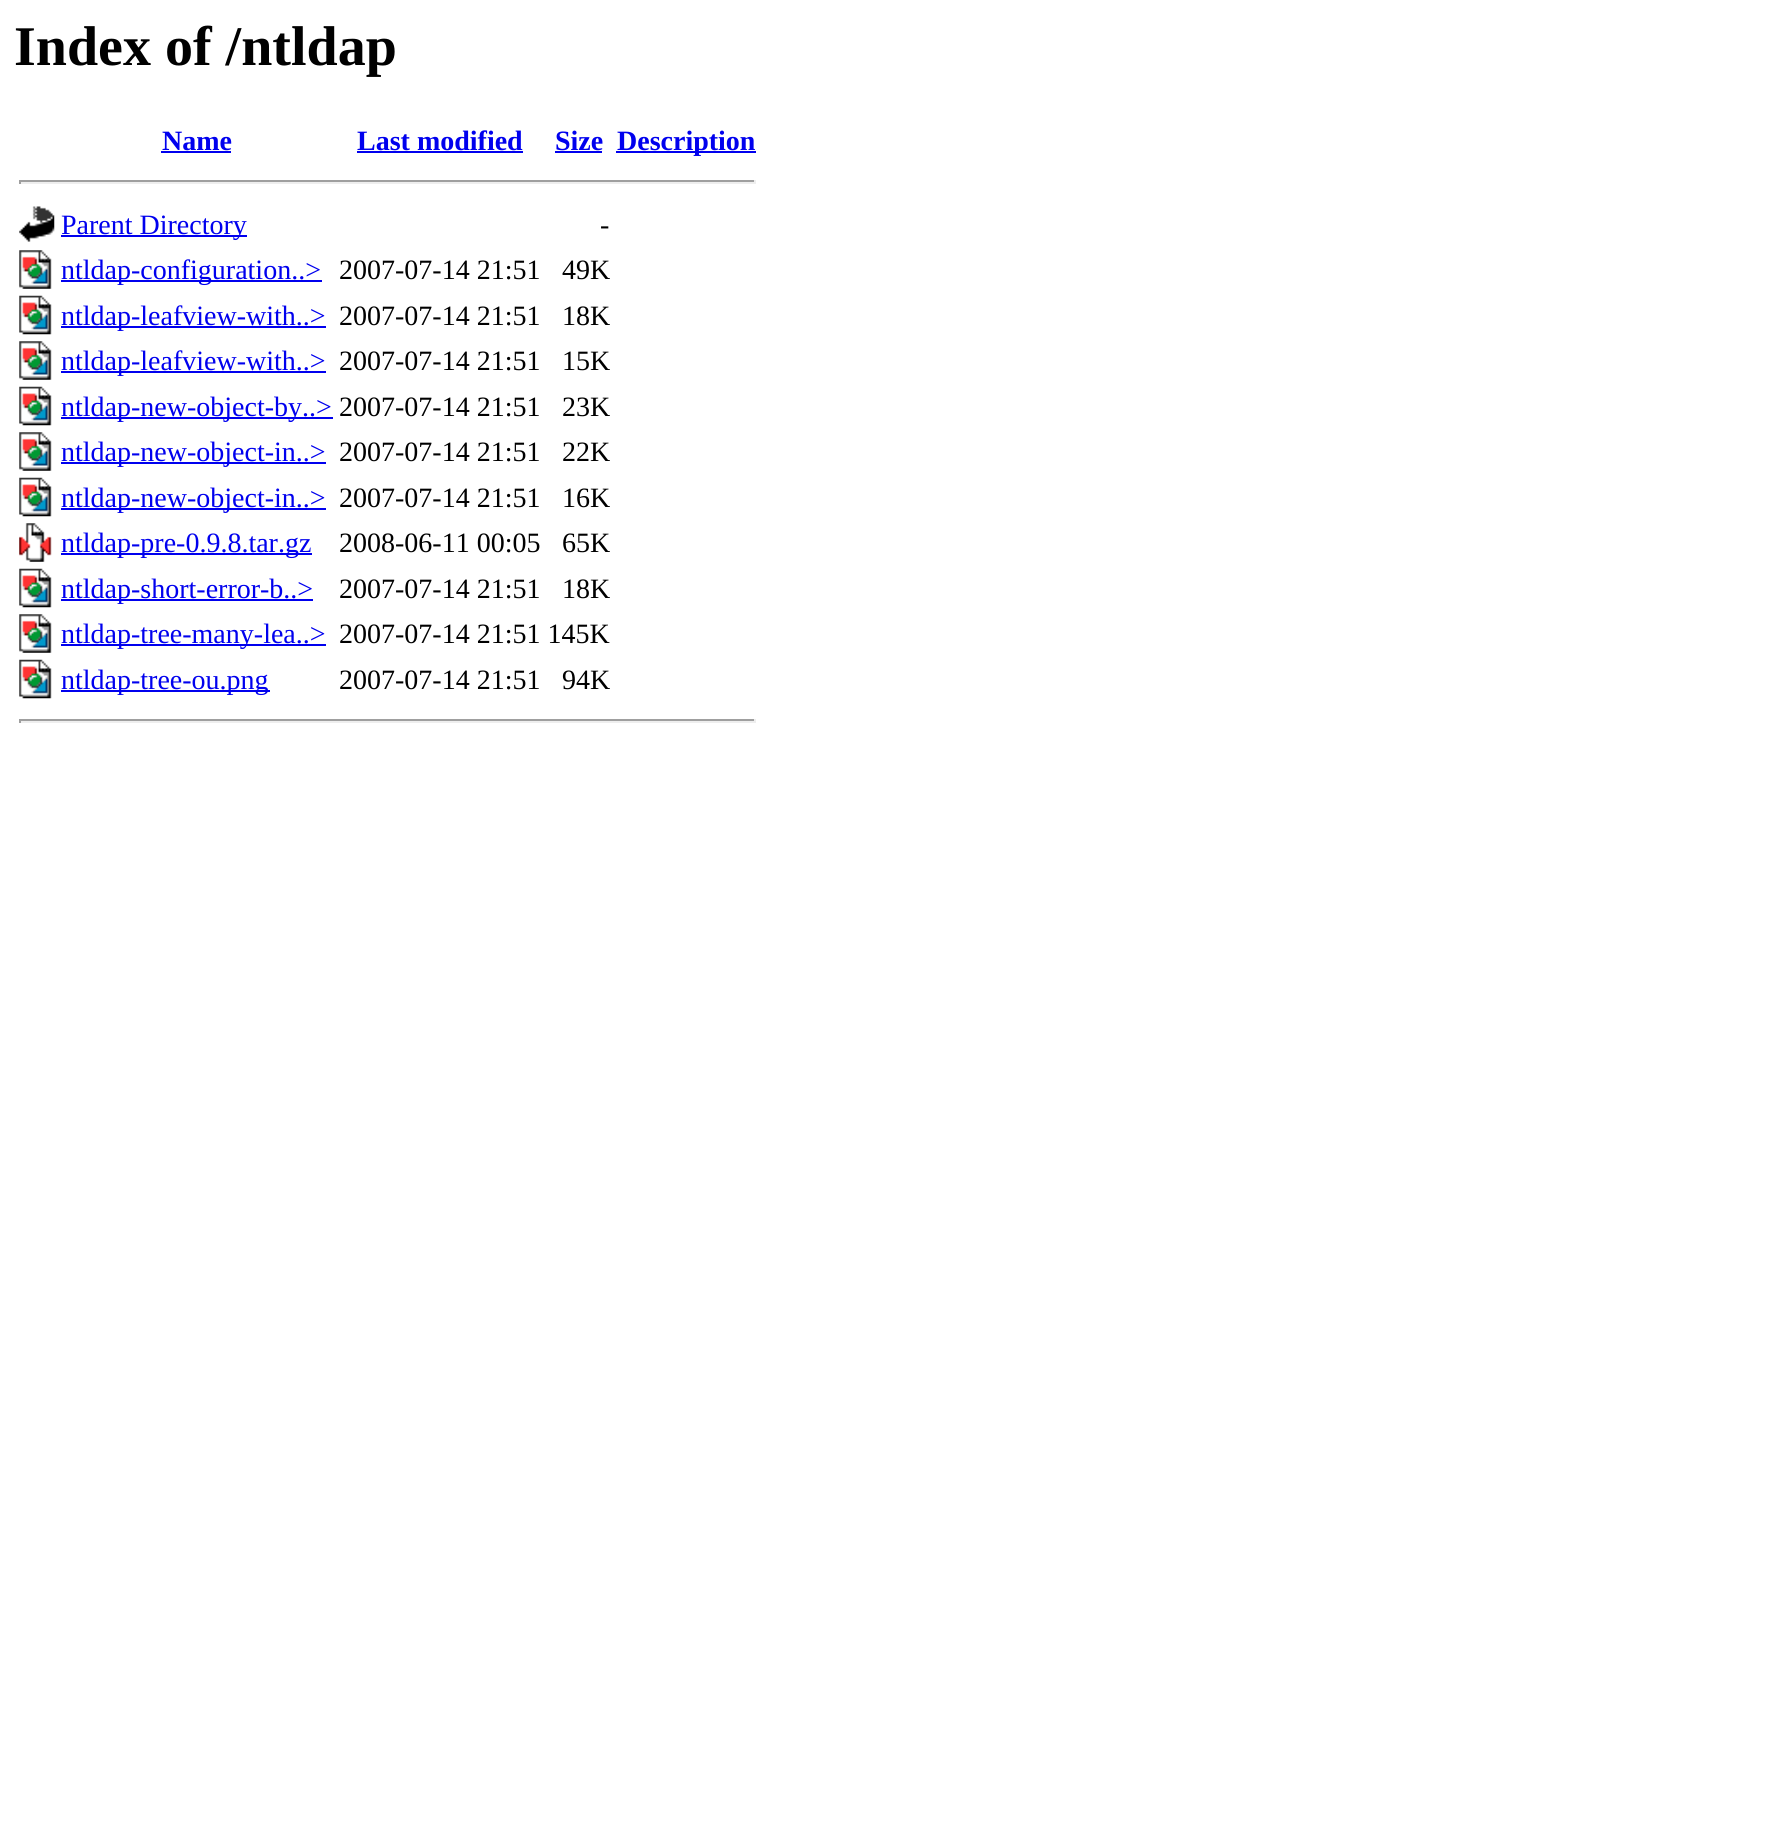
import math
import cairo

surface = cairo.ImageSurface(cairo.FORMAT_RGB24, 1780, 1826)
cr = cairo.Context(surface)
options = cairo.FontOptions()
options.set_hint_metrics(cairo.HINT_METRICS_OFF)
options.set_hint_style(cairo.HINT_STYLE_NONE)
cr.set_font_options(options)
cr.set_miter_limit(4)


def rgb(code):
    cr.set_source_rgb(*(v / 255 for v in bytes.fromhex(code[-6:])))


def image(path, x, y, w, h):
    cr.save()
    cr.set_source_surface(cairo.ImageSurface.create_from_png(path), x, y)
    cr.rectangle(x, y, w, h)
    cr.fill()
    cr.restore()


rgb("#ffffff")
cr.paint()
for x, y, w, h, color in [
    (161, 151, 70, 2, "#0000ee"),
    (357, 151, 166, 2, "#0000ee"),
    (555, 151, 47, 2, "#0000ee"),
    (616, 151, 140, 2, "#0000ee"),
    (19, 180, 737, 2, "#9f9f9f"),
    (754, 180, 2, 4, "#eeeeee"),
    (19, 182, 737, 2, "#eeeeee"),
    (19, 180, 2, 4, "#9f9f9f"),
]:
    rgb(color)
    cr.rectangle(x, y, w, h)
    cr.fill()
image("img/1.png", 19, 206, 36, 36)
rgb("#0000ee")
cr.rectangle(61, 235, 186, 2)
cr.fill()
image("img/2.png", 19, 250, 33, 39)
cr.rectangle(61, 280, 261, 2)
cr.fill()
image("img/3.png", 19, 295, 33, 40)
cr.rectangle(61, 326, 265, 2)
cr.fill()
image("img/2.png", 19, 341, 33, 39)
cr.rectangle(61, 371, 265, 2)
cr.fill()
image("img/3.png", 19, 386, 33, 40)
cr.rectangle(61, 417, 272, 2)
cr.fill()
image("img/2.png", 19, 432, 33, 39)
cr.rectangle(61, 462, 265, 2)
cr.fill()
image("img/3.png", 19, 477, 33, 40)
cr.rectangle(61, 508, 265, 2)
cr.fill()
image("img/4.png", 19, 523, 33, 39)
cr.rectangle(61, 553, 251, 2)
cr.fill()
image("img/3.png", 19, 568, 33, 40)
cr.rectangle(61, 599, 252, 2)
cr.fill()
image("img/2.png", 19, 614, 33, 39)
cr.rectangle(61, 644, 265, 2)
cr.fill()
image("img/3.png", 19, 659, 33, 40)
for x, y, w, h, color in [
    (61, 690, 209, 2, "#0000ee"),
    (19, 719, 737, 2, "#9f9f9f"),
    (754, 719, 2, 4, "#eeeeee"),
    (19, 721, 737, 2, "#eeeeee"),
    (19, 719, 2, 4, "#9f9f9f"),
]:
    rgb(color)
    cr.rectangle(x, y, w, h)
    cr.fill()
cr.select_font_face("Liberation Serif", cairo.FONT_SLANT_NORMAL, cairo.FONT_WEIGHT_BOLD)
cr.set_font_size(56)
rgb("#000000")
cr.move_to(14, 65)
cr.show_text("Index of /ntldap")
cr.set_font_size(28)
rgb("#0000ee")
for x, y, s in [
    (162, 150, "Name"),
    (357, 150, "Last modified"),
    (555, 150, "Size"),
    (617, 150, "Description"),
]:
    cr.move_to(x, y)
    cr.show_text(s)
cr.select_font_face("Liberation Serif")
cr.move_to(61, 234)
cr.show_text("Parent Directory")
rgb("#000000")
cr.move_to(600, 234)
cr.show_text("-")
rgb("#0000ee")
cr.move_to(61, 279)
cr.show_text("ntldap-configuration..>")
rgb("#000000")
cr.move_to(339, 279)
cr.show_text("2007-07-14 21:51")
cr.move_to(562, 279)
cr.show_text("49K")
rgb("#0000ee")
cr.move_to(61, 325)
cr.show_text("ntldap-leafview-with..>")
rgb("#000000")
cr.move_to(339, 325)
cr.show_text("2007-07-14 21:51")
cr.move_to(562, 325)
cr.show_text("18K")
rgb("#0000ee")
cr.move_to(61, 370)
cr.show_text("ntldap-leafview-with..>")
rgb("#000000")
cr.move_to(339, 370)
cr.show_text("2007-07-14 21:51")
cr.move_to(562, 370)
cr.show_text("15K")
rgb("#0000ee")
cr.move_to(61, 416)
cr.show_text("ntldap-new-object-by..>")
rgb("#000000")
cr.move_to(339, 416)
cr.show_text("2007-07-14 21:51")
cr.move_to(562, 416)
cr.show_text("23K")
rgb("#0000ee")
cr.move_to(61, 461)
cr.show_text("ntldap-new-object-in..>")
rgb("#000000")
cr.move_to(339, 461)
cr.show_text("2007-07-14 21:51")
cr.move_to(562, 461)
cr.show_text("22K")
rgb("#0000ee")
cr.move_to(61, 507)
cr.show_text("ntldap-new-object-in..>")
rgb("#000000")
cr.move_to(339, 507)
cr.show_text("2007-07-14 21:51")
cr.move_to(562, 507)
cr.show_text("16K")
rgb("#0000ee")
cr.move_to(61, 552)
cr.show_text("ntldap-pre-0.9.8.tar.gz")
rgb("#000000")
cr.move_to(339, 552)
cr.show_text("2008-06-11 00:05")
cr.move_to(562, 552)
cr.show_text("65K")
rgb("#0000ee")
cr.move_to(61, 598)
cr.show_text("ntldap-short-error-b..>")
rgb("#000000")
cr.move_to(339, 598)
cr.show_text("2007-07-14 21:51")
cr.move_to(562, 598)
cr.show_text("18K")
rgb("#0000ee")
cr.move_to(61, 643)
cr.show_text("ntldap-tree-many-lea..>")
rgb("#000000")
cr.move_to(339, 643)
cr.show_text("2007-07-14 21:51 145K")
rgb("#0000ee")
cr.move_to(61, 689)
cr.show_text("ntldap-tree-ou.png")
rgb("#000000")
cr.move_to(339, 689)
cr.show_text("2007-07-14 21:51")
cr.move_to(562, 689)
cr.show_text("94K")
surface.write_to_png("page.png")
